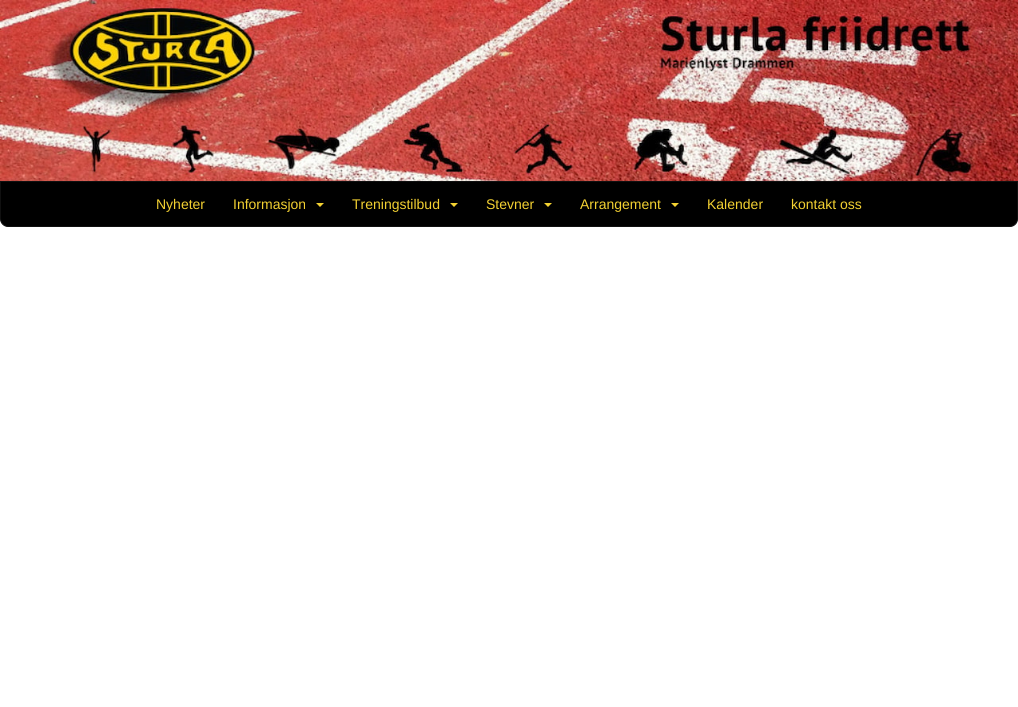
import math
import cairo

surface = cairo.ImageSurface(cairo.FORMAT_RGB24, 1018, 707)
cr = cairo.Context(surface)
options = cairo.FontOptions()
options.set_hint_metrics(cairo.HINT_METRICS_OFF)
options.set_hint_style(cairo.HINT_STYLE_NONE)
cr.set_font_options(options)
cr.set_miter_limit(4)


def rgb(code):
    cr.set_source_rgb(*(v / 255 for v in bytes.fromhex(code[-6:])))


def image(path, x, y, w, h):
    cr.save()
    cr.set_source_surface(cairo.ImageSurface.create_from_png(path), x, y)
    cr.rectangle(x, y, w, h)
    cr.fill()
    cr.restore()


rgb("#ffffff")
cr.paint()
image("img/1.png", 0, 0, 1018, 181)
rgb("#000000")
cr.new_path()
cr.move_to(0.5, 181.5)
cr.line_to(1017.5, 181.5)
cr.line_to(1017.5, 219)
cr.curve_to(1017.5, 223, 1014, 226.5, 1010, 226.5)
cr.line_to(8, 226.5)
cr.curve_to(4, 226.5, 0.5, 223, 0.5, 219)
cr.close_path()
cr.fill_preserve()
rgb("#101010")
cr.set_line_width(1)
cr.stroke()
rgb("#f3d132")
cr.new_path()
cr.move_to(316, 203)
cr.line_to(324, 203)
cr.line_to(320, 207)
cr.close_path()
cr.fill()
cr.new_path()
cr.move_to(450, 203)
cr.line_to(458, 203)
cr.line_to(454, 207)
cr.close_path()
cr.fill()
cr.new_path()
cr.move_to(544, 203)
cr.line_to(552, 203)
cr.line_to(548, 207)
cr.close_path()
cr.fill()
cr.new_path()
cr.move_to(671, 203)
cr.line_to(679, 203)
cr.line_to(675, 207)
cr.close_path()
cr.fill()
cr.select_font_face("Liberation Sans")
cr.set_font_size(14)
for x, y, s in [
    (156, 209, "Nyheter"),
    (233, 209, "Informasjon"),
    (352, 209, "Treningstilbud"),
    (486, 209, "Stevner"),
    (580, 209, "Arrangement"),
    (707, 209, "Kalender"),
    (791, 209, "kontakt oss"),
]:
    cr.move_to(x, y)
    cr.show_text(s)
surface.write_to_png("page.png")
